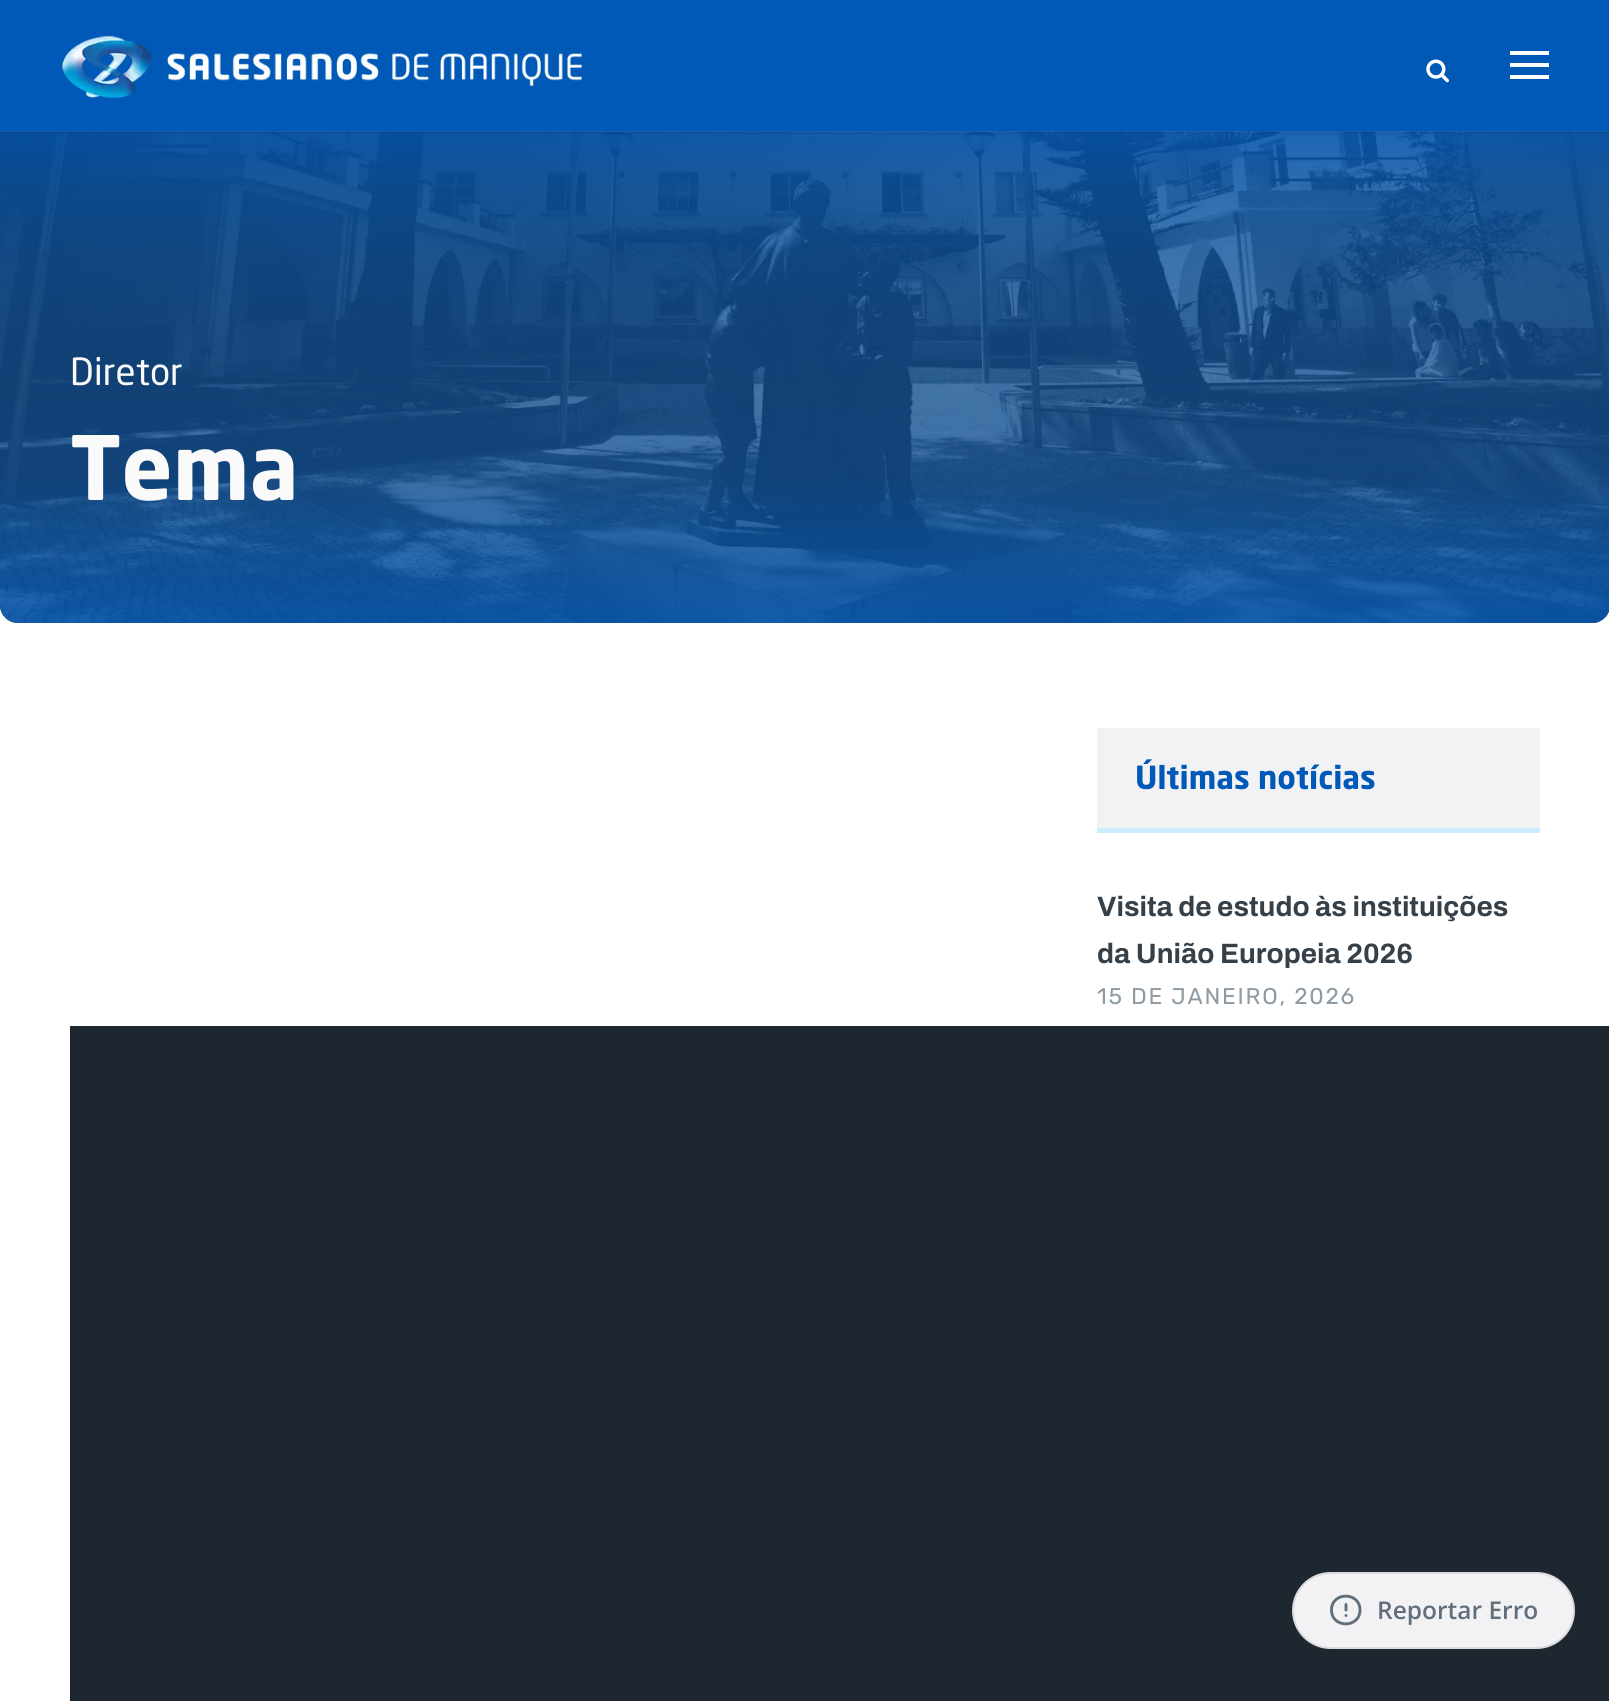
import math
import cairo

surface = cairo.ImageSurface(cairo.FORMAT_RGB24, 1609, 1701)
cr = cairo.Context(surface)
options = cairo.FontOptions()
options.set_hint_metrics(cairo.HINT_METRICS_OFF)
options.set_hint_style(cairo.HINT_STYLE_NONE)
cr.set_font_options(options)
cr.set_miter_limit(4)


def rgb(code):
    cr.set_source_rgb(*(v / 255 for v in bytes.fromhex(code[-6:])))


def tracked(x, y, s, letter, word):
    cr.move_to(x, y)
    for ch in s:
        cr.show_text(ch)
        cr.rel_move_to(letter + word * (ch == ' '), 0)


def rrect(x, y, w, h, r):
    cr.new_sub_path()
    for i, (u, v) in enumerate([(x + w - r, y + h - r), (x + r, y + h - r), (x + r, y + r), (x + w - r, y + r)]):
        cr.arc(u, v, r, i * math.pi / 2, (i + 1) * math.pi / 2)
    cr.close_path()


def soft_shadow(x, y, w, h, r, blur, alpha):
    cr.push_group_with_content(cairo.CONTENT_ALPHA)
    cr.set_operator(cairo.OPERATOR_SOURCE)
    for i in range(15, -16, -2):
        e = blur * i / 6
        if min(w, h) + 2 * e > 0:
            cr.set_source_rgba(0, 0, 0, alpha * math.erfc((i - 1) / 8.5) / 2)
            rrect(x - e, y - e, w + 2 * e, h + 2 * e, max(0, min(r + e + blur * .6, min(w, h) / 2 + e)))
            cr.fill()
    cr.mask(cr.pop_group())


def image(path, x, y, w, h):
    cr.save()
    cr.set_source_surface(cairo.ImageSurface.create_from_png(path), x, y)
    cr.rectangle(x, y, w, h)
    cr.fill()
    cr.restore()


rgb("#ffffff")
cr.paint()
image("img/3.png", 0, 131, 1609, 492)
gradient = cairo.LinearGradient(805, 481, 805, 131)
gradient.add_color_stop_rgba(0, 0, 0.345, 0.718, 0)
gradient.add_color_stop_rgba(1, 0, 0.345, 0.718, 0.8)
cr.set_source(gradient)
cr.rectangle(0, 131, 1609, 341)
cr.fill()
rgb("#000000")
soft_shadow(0, 2, 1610, 131, 0, 2, 0.1)
rgb("#0058b7")
cr.rectangle(0, 0, 1609, 131)
cr.fill()
image("img/1.png", 62, 35, 520, 63)
image("img/2.png", 1426, 59, 23, 24)
for x, y, w, h, color in [
    (1510, 51, 39, 4, "#ffffff"),
    (1510, 63, 39, 4, "#ffffff"),
    (1510, 75, 39, 4, "#ffffff"),
]:
    rgb(color)
    cr.rectangle(x, y, w, h)
    cr.fill()
gradient = cairo.LinearGradient(805, 185, 805, 623)
gradient.add_color_stop_rgba(0, 0, 0.345, 0.718, 0)
gradient.add_color_stop_rgba(1, 0, 0.345, 0.718, 0.8)
cr.set_source(gradient)
cr.new_path()
cr.move_to(0, 186)
cr.line_to(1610, 186)
cr.line_to(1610, 605)
cr.curve_to(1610, 615, 1602, 623, 1592, 623)
cr.line_to(18, 623)
cr.curve_to(8, 623, 0, 615, 0, 605)
cr.close_path()
cr.fill()
for x, y, w, h, color in [
    (1097, 728, 443, 100, "#f2f2f4"),
    (1097, 828, 443, 5, "#caecff"),
    (70, 1026, 1539, 675, "#1e272f"),
]:
    rgb(color)
    cr.rectangle(x, y, w, h)
    cr.fill()
rgb("#f2f2f4")
rrect(1293, 1573, 281, 75, 37.5)
cr.fill_preserve()
rgb("#dcdce0")
cr.stroke()
cr.new_path()
cr.move_to(1360, 1610)
cr.curve_to(1360, 1628.5, 1331.5, 1628.5, 1331.5, 1610)
cr.curve_to(1331.5, 1591.5, 1360, 1591.5, 1360, 1610)
cr.close_path()
cr.move_to(1346, 1604.5)
cr.line_to(1346, 1610)
cr.move_to(1346, 1615.5)
cr.line_to(1346, 1615.5)
cr.close_path()
rgb("#606f7b")
cr.set_line_width(2.9)
cr.set_line_cap(cairo.LINE_CAP_ROUND)
cr.set_line_join(cairo.LINE_JOIN_ROUND)
cr.stroke()
cr.select_font_face("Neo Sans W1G")
cr.set_font_size(37)
rgb("#fafafa")
cr.move_to(70, 385)
cr.show_text("Diretor")
cr.select_font_face("Neo Sans W1G", cairo.FONT_SLANT_NORMAL, cairo.FONT_WEIGHT_BOLD)
cr.set_font_size(87.5)
cr.move_to(70, 500)
cr.show_text("Tema")
cr.set_font_size(31.5)
rgb("#0058b7")
cr.move_to(1135, 789)
cr.show_text("Últimas notícias")
cr.select_font_face("Archivo", cairo.FONT_SLANT_NORMAL, cairo.FONT_WEIGHT_BOLD)
cr.set_font_size(28)
rgb("#364048")
cr.move_to(1097, 916)
cr.show_text("Visita de estudo às instituições")
cr.move_to(1097, 963)
cr.show_text("da União Europeia 2026")
cr.select_font_face("Rubik")
cr.set_font_size(22.75)
rgb("#8f9ba4")
tracked(1097, 1004, "15 DE JANEIRO, 2026", 1.75, 0)
cr.select_font_face("Open Sans SemiBold")
cr.set_font_size(24.5)
rgb("#606f7b")
cr.move_to(1377, 1619)
cr.show_text("Reportar Erro")
surface.write_to_png("page.png")
